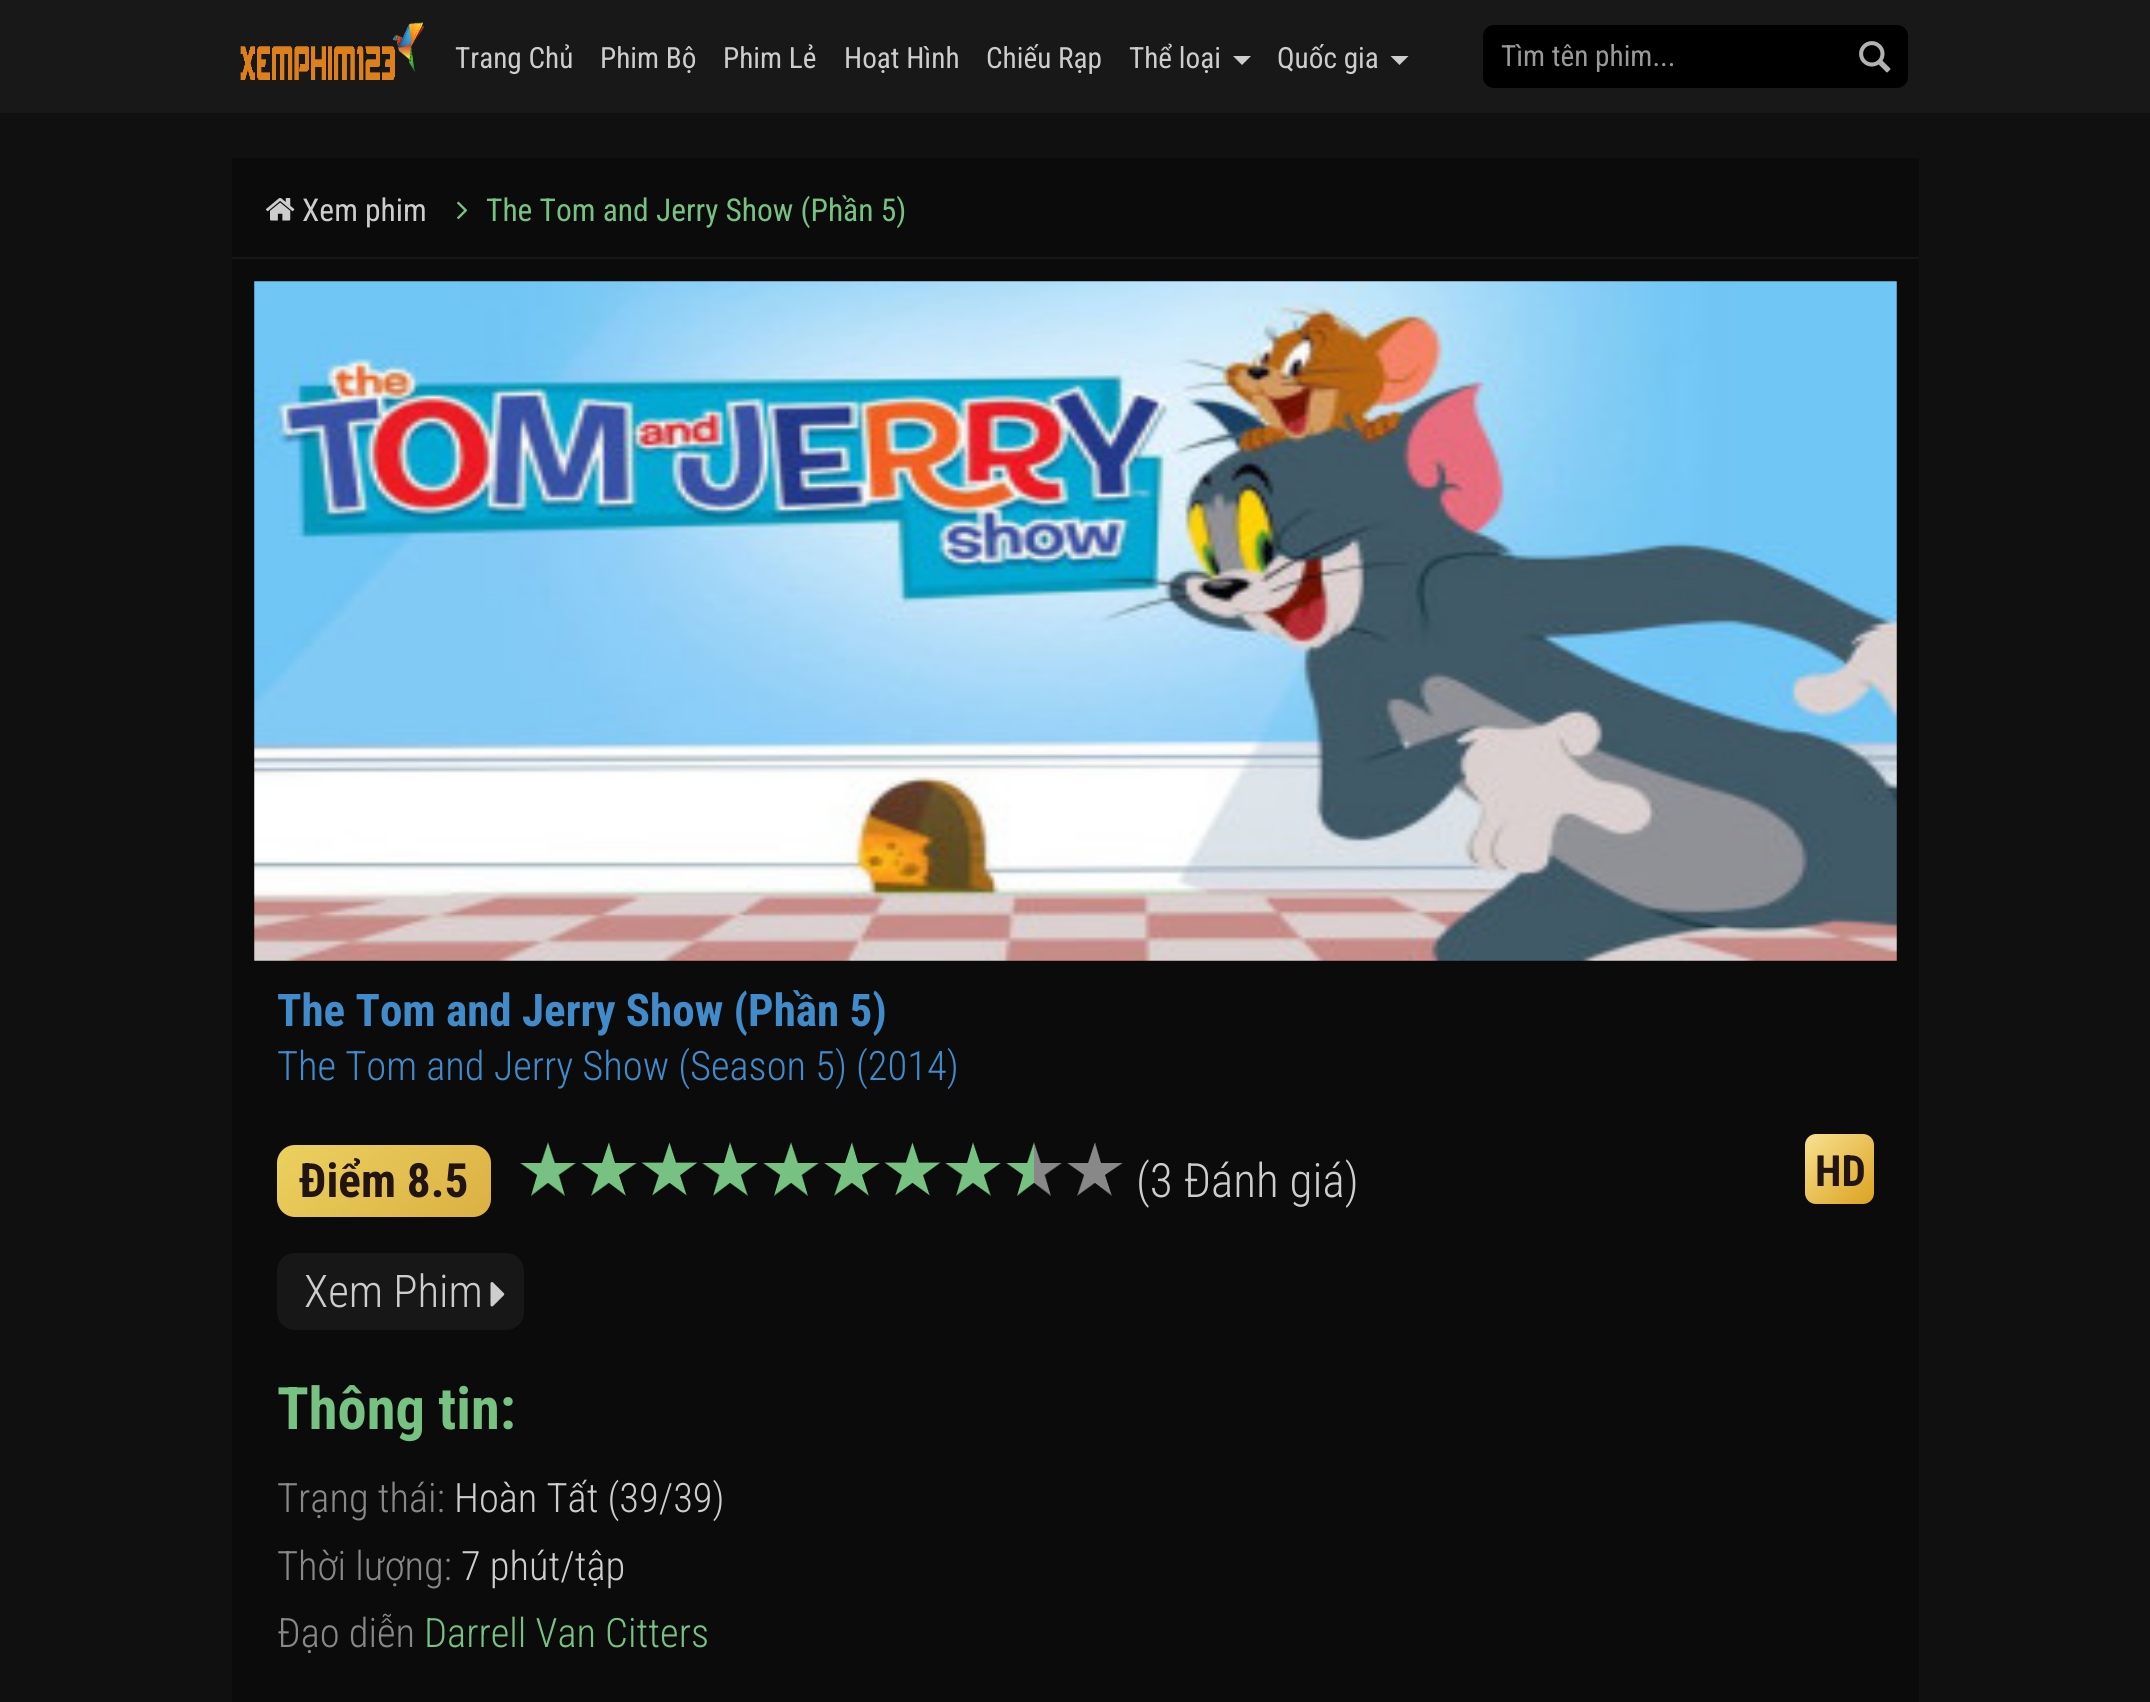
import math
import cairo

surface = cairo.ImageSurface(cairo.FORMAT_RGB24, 2150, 1702)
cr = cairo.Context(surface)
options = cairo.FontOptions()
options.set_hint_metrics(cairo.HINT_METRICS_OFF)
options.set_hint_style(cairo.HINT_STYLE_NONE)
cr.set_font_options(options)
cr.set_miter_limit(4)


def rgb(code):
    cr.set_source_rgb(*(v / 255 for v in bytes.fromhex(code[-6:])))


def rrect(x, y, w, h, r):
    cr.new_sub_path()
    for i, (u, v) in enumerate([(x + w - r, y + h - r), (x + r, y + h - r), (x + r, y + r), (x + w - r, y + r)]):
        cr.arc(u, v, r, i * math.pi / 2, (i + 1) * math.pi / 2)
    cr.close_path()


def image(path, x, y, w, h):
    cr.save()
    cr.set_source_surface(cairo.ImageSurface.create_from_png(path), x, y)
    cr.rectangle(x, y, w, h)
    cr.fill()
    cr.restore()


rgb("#101010")
cr.paint()
rgb("#181818")
cr.rectangle(0, 0, 2150, 113)
cr.fill()
image("img/1.png", 240, 22, 184, 58)
rgb("#cdcdcd")
cr.new_path()
cr.move_to(1233, 56)
cr.line_to(1251, 56)
cr.line_to(1242, 65)
cr.close_path()
cr.fill()
cr.new_path()
cr.move_to(1390.5, 56)
cr.line_to(1408.5, 56)
cr.line_to(1399.5, 65)
cr.close_path()
cr.fill()
rgb("#000000")
cr.new_path()
cr.move_to(1494, 25)
cr.line_to(1843, 25)
cr.line_to(1843, 88)
cr.line_to(1494, 88)
cr.curve_to(1488, 88, 1483, 83, 1483, 77)
cr.line_to(1483, 36)
cr.curve_to(1483, 30, 1488, 25, 1494, 25)
cr.close_path()
cr.fill()
cr.new_path()
cr.move_to(1841, 25)
cr.line_to(1897, 25)
cr.curve_to(1903, 25, 1908, 30, 1908, 36)
cr.line_to(1908, 77)
cr.curve_to(1908, 83, 1903, 88, 1897, 88)
cr.line_to(1841, 88)
cr.close_path()
cr.fill()
image("img/2.png", 1859, 41, 32, 32)
rgb("#0b0b0b")
cr.rectangle(232, 158, 1687, 99)
cr.fill()
rgb("#171717")
cr.rectangle(232, 257, 1687, 2)
cr.fill()
image("img/3.png", 266, 198, 29, 23)
image("img/4.png", 457, 201, 11, 19)
rgb("#0b0b0b")
cr.rectangle(232, 259, 1687, 1443)
cr.fill()
image("img/5.png", 254, 281, 1643, 680)
gradient = cairo.LinearGradient(324, 1107, 444, 1255)
gradient.add_color_stop_rgba(0, 0.922, 0.82, 0.373, 1)
gradient.add_color_stop_rgba(1, 0.859, 0.69, 0.263, 1)
cr.set_source(gradient)
rrect(277, 1145, 214, 72, 18)
cr.fill()
gradient = cairo.LinearGradient(520, 1142, 576, 1142)
gradient.add_color_stop_rgba(1, 0.467, 0.761, 0.51, 1)
gradient.add_color_stop_rgba(1, 0.533, 0.533, 0.533, 1)
cr.set_source(gradient)
cr.new_path()
cr.move_to(548, 1142)
cr.line_to(555, 1163)
cr.line_to(576, 1163)
cr.line_to(559, 1175)
cr.line_to(565, 1196)
cr.line_to(548, 1183)
cr.line_to(531, 1196)
cr.line_to(537, 1175)
cr.line_to(520, 1163)
cr.line_to(541, 1163)
cr.close_path()
cr.fill()
cr.new_path()
cr.move_to(548, 1142)
cr.line_to(554.5, 1162.5)
cr.line_to(576, 1162.5)
cr.line_to(558.5, 1175)
cr.line_to(565.5, 1195.5)
cr.line_to(548, 1183)
cr.line_to(530.5, 1195.5)
cr.line_to(537, 1175)
cr.line_to(520, 1162.5)
cr.line_to(541.5, 1162.5)
cr.close_path()
rgb("#000000")
cr.set_line_width(0.2)
cr.stroke()
gradient = cairo.LinearGradient(581, 1142, 637, 1142)
gradient.add_color_stop_rgba(1, 0.467, 0.761, 0.51, 1)
gradient.add_color_stop_rgba(1, 0.533, 0.533, 0.533, 1)
cr.set_source(gradient)
cr.new_path()
cr.move_to(609, 1142)
cr.line_to(615, 1163)
cr.line_to(637, 1163)
cr.line_to(619, 1175)
cr.line_to(626, 1196)
cr.line_to(609, 1183)
cr.line_to(591, 1196)
cr.line_to(598, 1175)
cr.line_to(581, 1163)
cr.line_to(602, 1163)
cr.close_path()
cr.fill()
cr.new_path()
cr.move_to(608.5, 1142)
cr.line_to(615.5, 1162.5)
cr.line_to(637, 1162.5)
cr.line_to(619.5, 1175)
cr.line_to(626, 1195.5)
cr.line_to(608.5, 1183)
cr.line_to(591.5, 1195.5)
cr.line_to(598, 1175)
cr.line_to(580.5, 1162.5)
cr.line_to(602, 1162.5)
cr.close_path()
rgb("#000000")
cr.stroke()
gradient = cairo.LinearGradient(702, 1142, 758, 1142)
gradient.add_color_stop_rgba(1, 0.467, 0.761, 0.51, 1)
gradient.add_color_stop_rgba(1, 0.533, 0.533, 0.533, 1)
cr.set_source(gradient)
cr.new_path()
cr.move_to(730, 1142)
cr.line_to(737, 1163)
cr.line_to(758, 1163)
cr.line_to(741, 1175)
cr.line_to(748, 1196)
cr.line_to(730, 1183)
cr.line_to(713, 1196)
cr.line_to(719, 1175)
cr.line_to(702, 1163)
cr.line_to(724, 1163)
cr.close_path()
cr.fill()
cr.new_path()
cr.move_to(730, 1142)
cr.line_to(737, 1162.5)
cr.line_to(758.5, 1162.5)
cr.line_to(741, 1175)
cr.line_to(747.5, 1195.5)
cr.line_to(730, 1183)
cr.line_to(713, 1195.5)
cr.line_to(719.5, 1175)
cr.line_to(702, 1162.5)
cr.line_to(723.5, 1162.5)
cr.close_path()
rgb("#000000")
cr.stroke()
gradient = cairo.LinearGradient(763, 1142, 819, 1142)
gradient.add_color_stop_rgba(1, 0.467, 0.761, 0.51, 1)
gradient.add_color_stop_rgba(1, 0.533, 0.533, 0.533, 1)
cr.set_source(gradient)
cr.new_path()
cr.move_to(791, 1142)
cr.line_to(798, 1163)
cr.line_to(819, 1163)
cr.line_to(802, 1175)
cr.line_to(808, 1196)
cr.line_to(791, 1183)
cr.line_to(774, 1196)
cr.line_to(780, 1175)
cr.line_to(763, 1163)
cr.line_to(784, 1163)
cr.close_path()
cr.fill()
cr.new_path()
cr.move_to(791, 1142)
cr.line_to(797.5, 1162.5)
cr.line_to(819, 1162.5)
cr.line_to(801.5, 1175)
cr.line_to(808.5, 1195.5)
cr.line_to(791, 1183)
cr.line_to(773.5, 1195.5)
cr.line_to(780, 1175)
cr.line_to(763, 1162.5)
cr.line_to(784.5, 1162.5)
cr.close_path()
rgb("#000000")
cr.stroke()
gradient = cairo.LinearGradient(824, 1142, 880, 1142)
gradient.add_color_stop_rgba(1, 0.467, 0.761, 0.51, 1)
gradient.add_color_stop_rgba(1, 0.533, 0.533, 0.533, 1)
cr.set_source(gradient)
cr.new_path()
cr.move_to(852, 1142)
cr.line_to(858, 1163)
cr.line_to(880, 1163)
cr.line_to(862, 1175)
cr.line_to(869, 1196)
cr.line_to(852, 1183)
cr.line_to(834, 1196)
cr.line_to(841, 1175)
cr.line_to(824, 1163)
cr.line_to(845, 1163)
cr.close_path()
cr.fill()
cr.new_path()
cr.move_to(851.5, 1142)
cr.line_to(858.5, 1162.5)
cr.line_to(880, 1162.5)
cr.line_to(862.5, 1175)
cr.line_to(869, 1195.5)
cr.line_to(851.5, 1183)
cr.line_to(834.5, 1195.5)
cr.line_to(841, 1175)
cr.line_to(823.5, 1162.5)
cr.line_to(845, 1162.5)
cr.close_path()
rgb("#000000")
cr.stroke()
gradient = cairo.LinearGradient(945, 1142, 1001, 1142)
gradient.add_color_stop_rgba(1, 0.467, 0.761, 0.51, 1)
gradient.add_color_stop_rgba(1, 0.533, 0.533, 0.533, 1)
cr.set_source(gradient)
cr.new_path()
cr.move_to(973, 1142)
cr.line_to(980, 1163)
cr.line_to(1001, 1163)
cr.line_to(984, 1175)
cr.line_to(991, 1196)
cr.line_to(973, 1183)
cr.line_to(956, 1196)
cr.line_to(962, 1175)
cr.line_to(945, 1163)
cr.line_to(967, 1163)
cr.close_path()
cr.fill()
cr.new_path()
cr.move_to(973, 1142)
cr.line_to(980, 1162.5)
cr.line_to(1001.5, 1162.5)
cr.line_to(984, 1175)
cr.line_to(990.5, 1195.5)
cr.line_to(973, 1183)
cr.line_to(956, 1195.5)
cr.line_to(962.5, 1175)
cr.line_to(945, 1162.5)
cr.line_to(966.5, 1162.5)
cr.close_path()
rgb("#000000")
cr.stroke()
gradient = cairo.LinearGradient(1006, 1142, 1062, 1142)
gradient.add_color_stop_rgba(0.5, 0.467, 0.761, 0.51, 1)
gradient.add_color_stop_rgba(0.5, 0.533, 0.533, 0.533, 1)
cr.set_source(gradient)
cr.new_path()
cr.move_to(1034, 1142)
cr.line_to(1041, 1163)
cr.line_to(1062, 1163)
cr.line_to(1045, 1175)
cr.line_to(1051, 1196)
cr.line_to(1034, 1183)
cr.line_to(1017, 1196)
cr.line_to(1023, 1175)
cr.line_to(1006, 1163)
cr.line_to(1027, 1163)
cr.close_path()
cr.fill()
cr.new_path()
cr.move_to(1034, 1142)
cr.line_to(1040.5, 1162.5)
cr.line_to(1062, 1162.5)
cr.line_to(1044.5, 1175)
cr.line_to(1051.5, 1195.5)
cr.line_to(1034, 1183)
cr.line_to(1016.5, 1195.5)
cr.line_to(1023, 1175)
cr.line_to(1006, 1162.5)
cr.line_to(1027.5, 1162.5)
cr.close_path()
rgb("#000000")
cr.stroke()
rgb("#888888")
cr.new_path()
cr.move_to(1095, 1142)
cr.line_to(1101, 1163)
cr.line_to(1123, 1163)
cr.line_to(1105, 1175)
cr.line_to(1112, 1196)
cr.line_to(1095, 1183)
cr.line_to(1077, 1196)
cr.line_to(1084, 1175)
cr.line_to(1067, 1163)
cr.line_to(1088, 1163)
cr.close_path()
cr.fill()
cr.new_path()
cr.move_to(1094.5, 1142)
cr.line_to(1101.5, 1162.5)
cr.line_to(1123, 1162.5)
cr.line_to(1105.5, 1175)
cr.line_to(1112, 1195.5)
cr.line_to(1094.5, 1183)
cr.line_to(1077.5, 1195.5)
cr.line_to(1084, 1175)
cr.line_to(1066.5, 1162.5)
cr.line_to(1088, 1162.5)
cr.close_path()
rgb("#000000")
cr.stroke()
image("img/6.png", 641, 1142, 57, 54)
image("img/6.png", 884, 1142, 57, 54)
gradient = cairo.LinearGradient(1874, 1204, 1805, 1134)
gradient.add_color_stop_rgba(0, 0.859, 0.635, 0.122, 1)
gradient.add_color_stop_rgba(1, 0.973, 0.882, 0.569, 1)
cr.set_source(gradient)
rrect(1805, 1134, 69, 70, 11)
cr.fill()
rgb("#171717")
rrect(277, 1253, 247, 77, 18)
cr.fill()
image("img/7.png", 490, 1282, 15, 25)
cr.select_font_face("Roboto Condensed")
cr.set_font_size(29.25)
rgb("#cdcdcd")
for x, y, s in [
    (455, 68, "Trang Chủ"),
    (600, 68, "Phim Bộ"),
    (723, 68, "Phim Lẻ"),
    (844, 68, "Hoạt Hình"),
    (986, 68, "Chiếu Rạp"),
    (1129, 68, "Thể loại"),
    (1277, 68, "Quốc gia"),
]:
    cr.move_to(x, y)
    cr.show_text(s)
rgb("#999999")
cr.move_to(1501, 66)
cr.show_text("Tìm tên phim...")
cr.set_font_size(31.5)
rgb("#cdcdcd")
cr.move_to(302, 221)
cr.show_text("Xem phim")
rgb("#77c282")
cr.move_to(486, 221)
cr.show_text("The Tom and Jerry Show (Phần 5)")
cr.select_font_face("Roboto Condensed", cairo.FONT_SLANT_NORMAL, cairo.FONT_WEIGHT_BOLD)
cr.set_font_size(45)
rgb("#428bca")
cr.move_to(277, 1026)
cr.show_text("The Tom and Jerry Show (Phần 5)")
cr.select_font_face("Roboto Condensed Light")
cr.set_font_size(40.5)
cr.move_to(277, 1080)
cr.show_text("The Tom and Jerry Show (Season 5) (2014)")
cr.select_font_face("Roboto Condensed", cairo.FONT_SLANT_NORMAL, cairo.FONT_WEIGHT_BOLD)
cr.set_font_size(47.25)
rgb("#231414")
cr.move_to(299, 1197)
cr.show_text("Điểm 8.5")
cr.select_font_face("Roboto Condensed Light")
rgb("#cdcdcd")
cr.move_to(1136, 1197)
cr.show_text("(3 Đánh giá)")
cr.select_font_face("Roboto Condensed", cairo.FONT_SLANT_NORMAL, cairo.FONT_WEIGHT_BOLD)
cr.set_font_size(43)
rgb("#231414")
cr.move_to(1815, 1186)
cr.show_text("HD")
cr.select_font_face("Roboto Condensed Light")
cr.set_font_size(45)
rgb("#cdcdcd")
cr.move_to(304, 1307)
cr.show_text("Xem Phim")
cr.select_font_face("Roboto Condensed", cairo.FONT_SLANT_NORMAL, cairo.FONT_WEIGHT_BOLD)
cr.set_font_size(58.5)
rgb("#77c282")
cr.move_to(277, 1429)
cr.show_text("Thông tin:")
cr.select_font_face("Roboto Condensed Light")
cr.set_font_size(40.5)
rgb("#888888")
cr.move_to(277, 1512)
cr.show_text("Trạng thái:")
rgb("#cdcdcd")
cr.move_to(454, 1512)
cr.show_text("Hoàn Tất (39/39)")
rgb("#888888")
cr.move_to(277, 1580)
cr.show_text("Thời lượng:")
rgb("#cdcdcd")
cr.move_to(461, 1580)
cr.show_text("7 phút/tập")
rgb("#888888")
cr.move_to(277, 1647)
cr.show_text("Đạo diễn")
rgb("#77c282")
cr.move_to(424, 1647)
cr.show_text("Darrell Van Citters")
surface.write_to_png("page.png")
